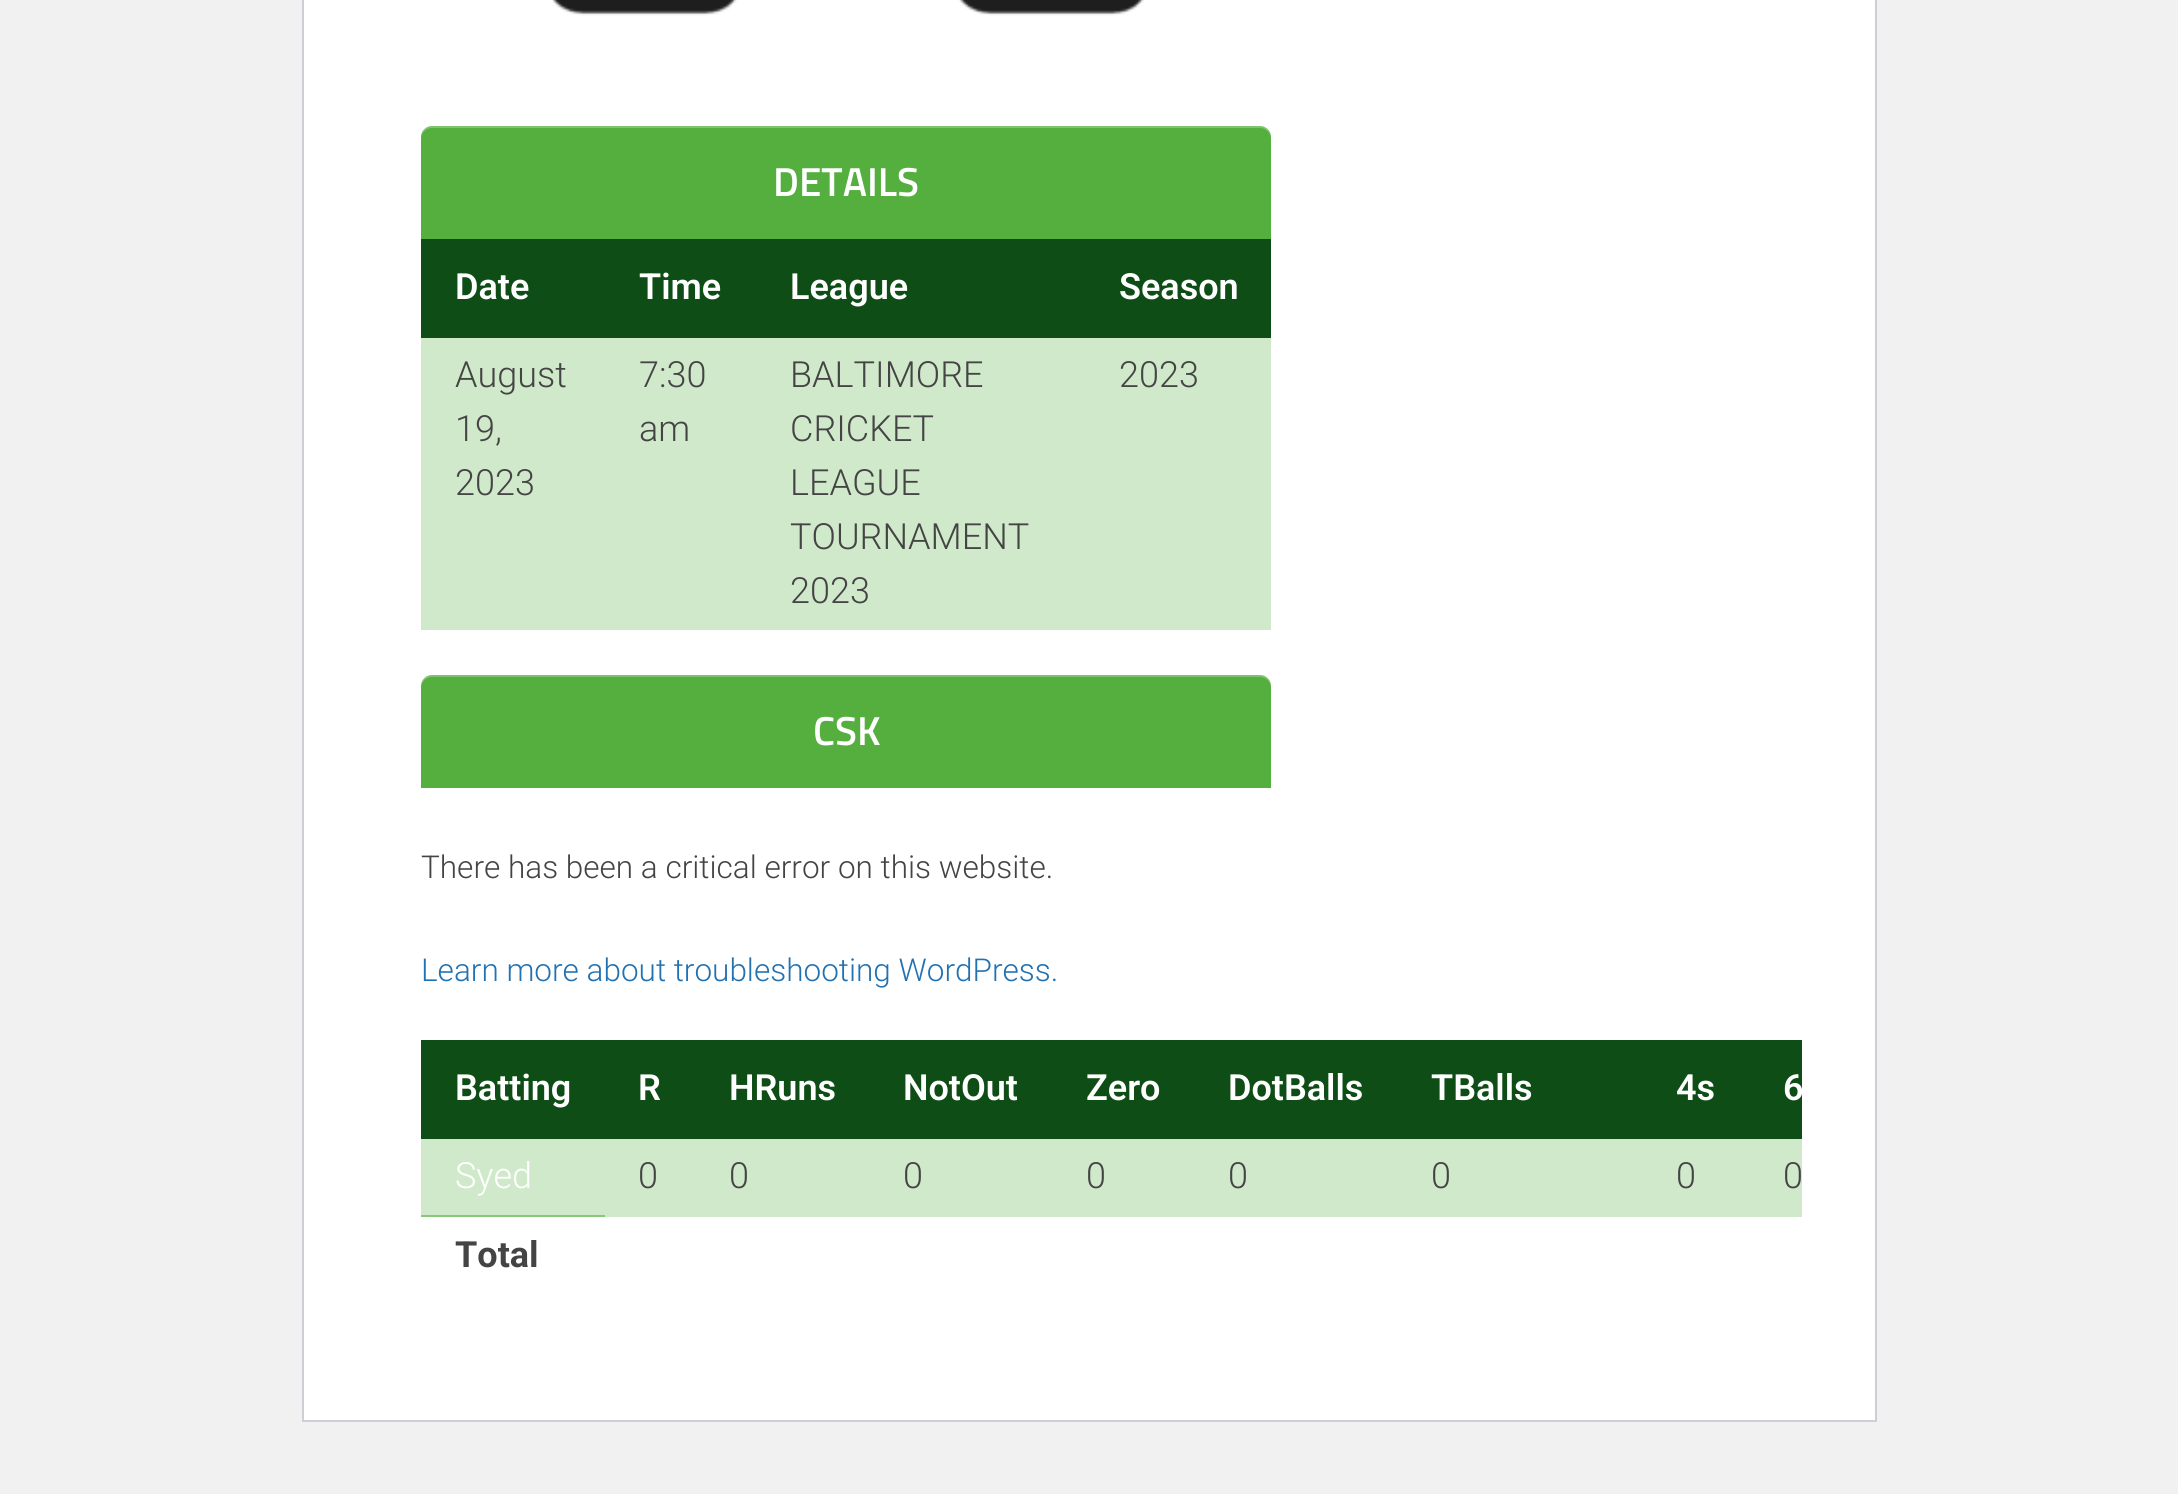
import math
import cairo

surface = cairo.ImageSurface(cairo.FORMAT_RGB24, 2178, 1494)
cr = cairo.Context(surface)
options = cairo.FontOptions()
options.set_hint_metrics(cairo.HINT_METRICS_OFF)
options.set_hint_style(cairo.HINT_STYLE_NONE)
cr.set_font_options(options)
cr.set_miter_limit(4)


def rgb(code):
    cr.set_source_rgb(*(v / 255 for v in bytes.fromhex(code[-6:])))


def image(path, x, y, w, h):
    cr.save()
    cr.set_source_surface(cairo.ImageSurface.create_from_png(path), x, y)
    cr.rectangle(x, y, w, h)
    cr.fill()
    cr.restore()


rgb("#f1f1f1")
cr.paint()
rgb("#ffffff")
cr.rectangle(303, -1, 1573, 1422)
cr.fill_preserve()
rgb("#ccd0d4")
cr.stroke()
image("img/1.png", 551, 0, 186, 16)
image("img/2.png", 958, 0, 186, 16)
rgb("#54af3f")
cr.new_path()
cr.move_to(432, 126)
cr.line_to(1260, 126)
cr.curve_to(1266, 126, 1271, 131, 1271, 137)
cr.line_to(1271, 239)
cr.line_to(421, 239)
cr.line_to(421, 137)
cr.curve_to(421, 131, 426, 126, 432, 126)
cr.close_path()
cr.fill()
cr.set_source_rgba(1, 1, 1, 0.25)
cr.new_path()
cr.move_to(432, 128)
cr.line_to(1260, 128)
cr.curve_to(1266, 128, 1271, 133, 1271, 140)
cr.curve_to(1271, 133, 1268, 126, 1260, 126)
cr.line_to(432, 126)
cr.curve_to(424, 126, 421, 133, 421, 140)
cr.curve_to(421, 133, 426, 128, 432, 128)
cr.close_path()
cr.fill()
rgb("#0e4d15")
cr.rectangle(421, 239, 850, 99)
cr.fill()
rgb("#d0e9ca")
cr.rectangle(421, 338, 850, 292)
cr.fill()
rgb("#54af3f")
cr.new_path()
cr.move_to(432, 675)
cr.line_to(1260, 675)
cr.curve_to(1266, 675, 1271, 680, 1271, 686)
cr.line_to(1271, 788)
cr.line_to(421, 788)
cr.line_to(421, 686)
cr.curve_to(421, 680, 426, 675, 432, 675)
cr.close_path()
cr.fill()
cr.set_source_rgba(1, 1, 1, 0.25)
cr.new_path()
cr.move_to(432, 677)
cr.line_to(1260, 677)
cr.curve_to(1266, 677, 1271, 682, 1271, 688)
cr.line_to(1271, 686)
cr.curve_to(1271, 680, 1266, 675, 1260, 675)
cr.line_to(432, 675)
cr.curve_to(426, 675, 421, 680, 421, 686)
cr.line_to(421, 688)
cr.curve_to(421, 682, 426, 677, 432, 677)
cr.close_path()
cr.fill()
for x, y, w, h, color in [
    (421, 1040, 1381, 99, "#0e4d15"),
    (421, 1139, 1381, 78, "#d0e9ca"),
    (421, 1215, 184, 2, "#89c87a"),
]:
    rgb(color)
    cr.rectangle(x, y, w, h)
    cr.fill()
cr.select_font_face("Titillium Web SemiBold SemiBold")
cr.set_font_size(40.5)
rgb("#ffffff")
cr.move_to(773, 196)
cr.show_text("DETAILS")
cr.select_font_face("Roboto SemiBold")
cr.set_font_size(36)
for x, y, s in [
    (455, 299, "Date"),
    (639, 299, "Time"),
    (790, 299, "League"),
    (1119, 299, "Season"),
]:
    cr.move_to(x, y)
    cr.show_text(s)
cr.select_font_face("Roboto Light")
rgb("#444444")
for x, y, s in [
    (455, 387, "August"),
    (455, 441, "19,"),
    (455, 495, "2023"),
    (639, 387, "7:30"),
    (639, 441, "am"),
    (790, 387, "BALTIMORE"),
    (790, 441, "CRICKET"),
    (790, 495, "LEAGUE"),
    (790, 549, "TOURNAMENT"),
    (790, 603, "2023"),
    (1119, 387, "2023"),
]:
    cr.move_to(x, y)
    cr.show_text(s)
cr.select_font_face("Titillium Web SemiBold SemiBold")
cr.set_font_size(40.5)
rgb("#ffffff")
cr.move_to(813, 745)
cr.show_text("CSK")
cr.select_font_face("Roboto Light")
cr.set_font_size(31.5)
rgb("#444444")
cr.move_to(421, 878)
cr.show_text("There has been a critical error on this website.")
rgb("#2271b1")
cr.move_to(421, 981)
cr.show_text("Learn more about troubleshooting WordPress.")
cr.select_font_face("Roboto SemiBold")
cr.set_font_size(36)
rgb("#ffffff")
for x, y, s in [
    (455, 1100, "Batting"),
    (638, 1100, "R"),
    (729, 1100, "HRuns"),
    (903, 1100, "NotOut"),
    (1086, 1100, "Zero"),
    (1228, 1100, "DotBalls"),
    (1431, 1100, "TBalls"),
    (1676, 1100, "4s"),
    (1783, 1100, "6"),
]:
    cr.move_to(x, y)
    cr.show_text(s)
cr.select_font_face("Roboto Light")
cr.move_to(455, 1188)
cr.show_text("Syed")
rgb("#444444")
for x, y, s in [
    (638, 1188, "0"),
    (729, 1188, "0"),
    (903, 1188, "0"),
    (1086, 1188, "0"),
    (1228, 1188, "0"),
    (1431, 1188, "0"),
    (1676, 1188, "0"),
    (1783, 1188, "0"),
]:
    cr.move_to(x, y)
    cr.show_text(s)
cr.select_font_face("Roboto", cairo.FONT_SLANT_NORMAL, cairo.FONT_WEIGHT_BOLD)
cr.move_to(455, 1267)
cr.show_text("Total")
surface.write_to_png("page.png")
